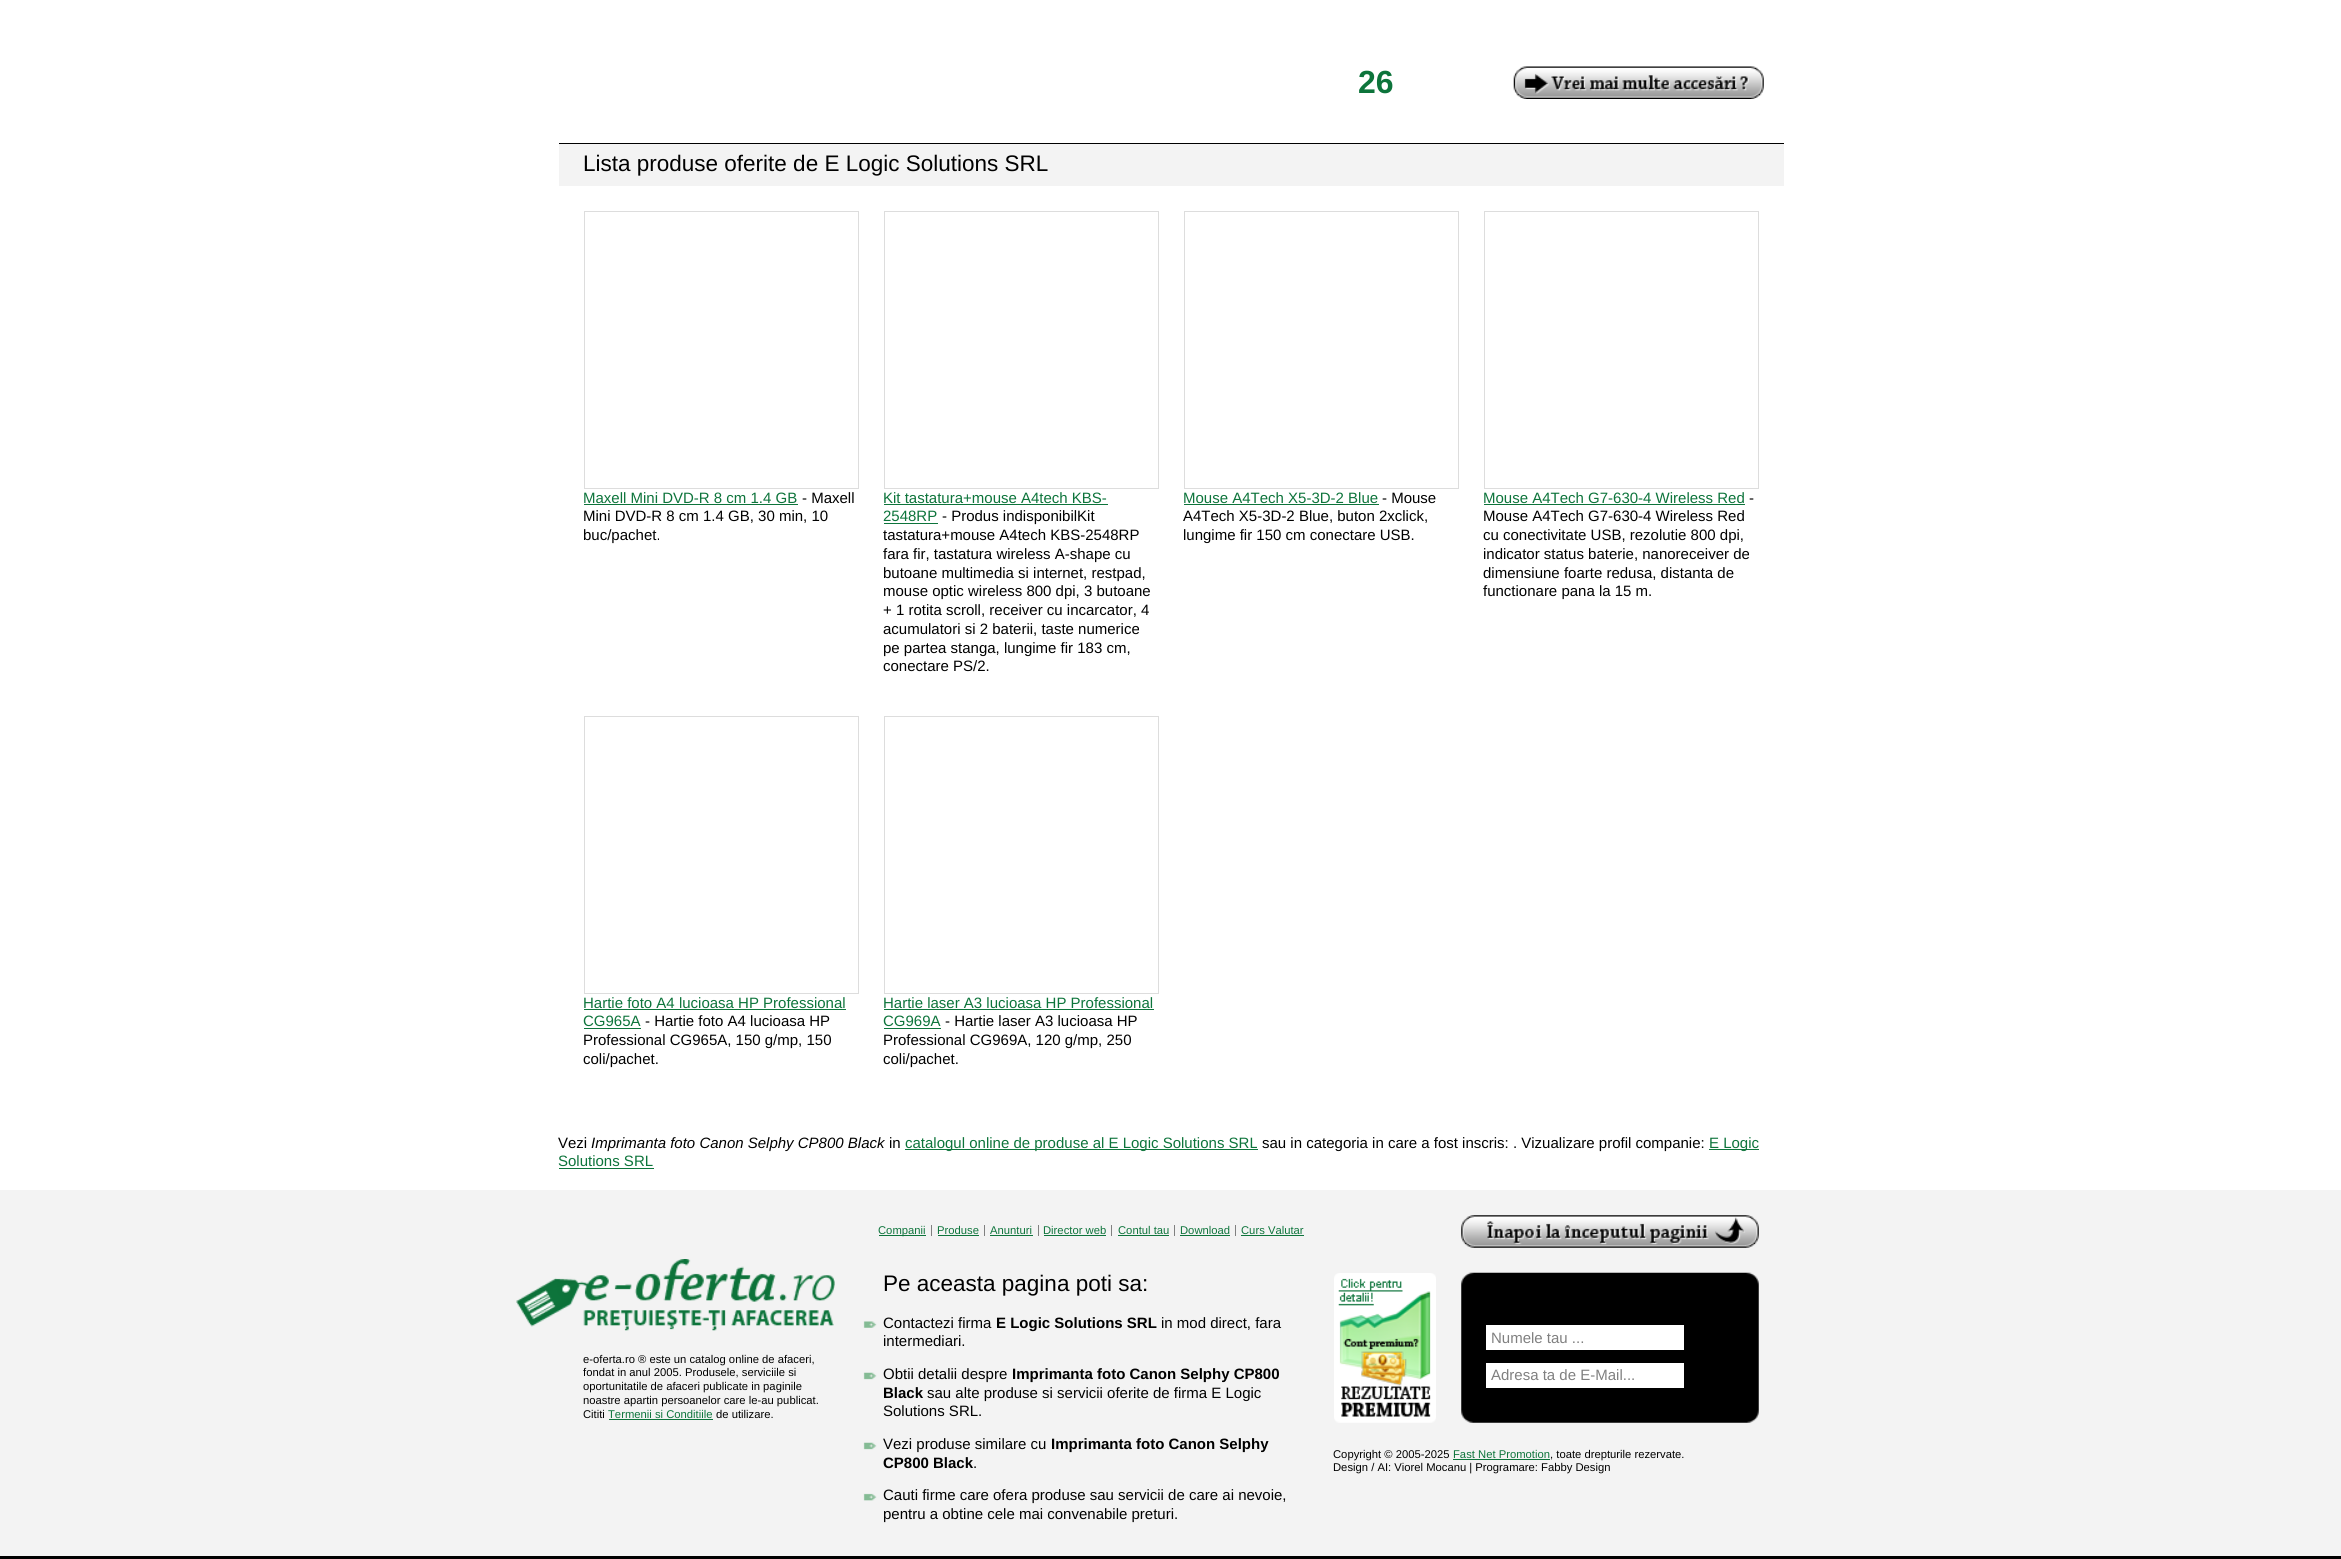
import math
import cairo

surface = cairo.ImageSurface(cairo.FORMAT_RGB24, 2341, 1559)
cr = cairo.Context(surface)
options = cairo.FontOptions()
options.set_hint_metrics(cairo.HINT_METRICS_OFF)
options.set_hint_style(cairo.HINT_STYLE_NONE)
cr.set_font_options(options)
cr.set_miter_limit(4)


def rgb(code):
    cr.set_source_rgb(*(v / 255 for v in bytes.fromhex(code[-6:])))


def image(path, x, y, w, h):
    cr.save()
    cr.set_source_surface(cairo.ImageSurface.create_from_png(path), x, y)
    cr.rectangle(x, y, w, h)
    cr.fill()
    cr.restore()


rgb("#ffffff")
cr.paint()
image("img/1.png", 1513, 66, 251, 33)
rgb("#f3f3f3")
cr.rectangle(559, 144, 1225, 42)
cr.fill()
rgb("#000000")
cr.rectangle(559, 143, 1225, 1)
cr.fill()
cr.rectangle(584.5, 211.5, 274, 277)
rgb("#dddddd")
cr.set_line_width(1)
cr.stroke()
rgb("#0d743b")
cr.rectangle(584, 504, 214, 1)
cr.fill()
cr.rectangle(884.5, 211.5, 274, 277)
rgb("#dddddd")
cr.stroke()
rgb("#0d743b")
cr.rectangle(884, 504, 224, 1)
cr.fill()
cr.rectangle(884, 523, 54, 1)
cr.fill()
cr.rectangle(1184.5, 211.5, 274, 277)
rgb("#dddddd")
cr.stroke()
rgb("#0d743b")
cr.rectangle(1184, 504, 195, 1)
cr.fill()
cr.rectangle(1484.5, 211.5, 274, 277)
rgb("#dddddd")
cr.stroke()
rgb("#0d743b")
cr.rectangle(1484, 504, 261, 1)
cr.fill()
cr.rectangle(584.5, 716.5, 274, 277)
rgb("#dddddd")
cr.stroke()
rgb("#0d743b")
cr.rectangle(584, 1009, 262, 1)
cr.fill()
cr.rectangle(584, 1028, 57, 1)
cr.fill()
cr.rectangle(884.5, 716.5, 274, 277)
rgb("#dddddd")
cr.stroke()
for x, y, w, h, color in [
    (884, 1009, 270, 1, "#0d743b"),
    (884, 1028, 57, 1, "#0d743b"),
    (905, 1149, 353, 1, "#0d743b"),
    (1709, 1149, 50, 1, "#0d743b"),
    (559, 1168, 95, 1, "#0d743b"),
    (0, 1190, 2341, 366, "#f3f3f3"),
]:
    rgb(color)
    cr.rectangle(x, y, w, h)
    cr.fill()
image("img/2.png", 516, 1259, 319, 72)
for x, y, w, h, color in [
    (609, 1419, 104, 1, "#0d743b"),
    (931, 1225, 1, 11, "#808080"),
    (879, 1235, 47, 1, "#0d743b"),
    (984, 1225, 1, 11, "#808080"),
    (938, 1235, 41, 1, "#0d743b"),
    (1038, 1225, 1, 11, "#808080"),
    (990, 1235, 43, 1, "#0d743b"),
    (1111, 1225, 1, 11, "#808080"),
    (1044, 1235, 62, 1, "#0d743b"),
    (1174, 1225, 1, 11, "#808080"),
    (1118, 1235, 51, 1, "#0d743b"),
    (1235, 1225, 1, 11, "#808080"),
    (1180, 1235, 50, 1, "#0d743b"),
    (1241, 1235, 63, 1, "#0d743b"),
]:
    rgb(color)
    cr.rectangle(x, y, w, h)
    cr.fill()
image("img/3.png", 1461, 1215, 298, 33)
image("img/4.png", 863, 1321, 14, 7)
image("img/5.png", 863, 1372, 14, 8)
image("img/5.png", 863, 1442, 14, 8)
image("img/6.png", 863, 1493, 14, 8)
image("img/7.png", 1334, 1273, 102, 150)
image("img/8.png", 1461, 1272, 298, 151)
for x, y, w, h, color in [
    (1486, 1325, 198, 25, "#ffffff"),
    (1486, 1363, 198, 25, "#ffffff"),
    (1453, 1459, 97, 1, "#0d743b"),
    (0, 1556, 2341, 3, "#000000"),
]:
    rgb(color)
    cr.rectangle(x, y, w, h)
    cr.fill()
cr.select_font_face("Liberation Sans", cairo.FONT_SLANT_NORMAL, cairo.FONT_WEIGHT_BOLD)
cr.set_font_size(32)
rgb("#0d743b")
cr.move_to(1358, 93)
cr.show_text("26")
cr.select_font_face("Liberation Sans")
cr.set_font_size(22.5)
rgb("#000000")
cr.move_to(583, 171)
cr.show_text("Lista produse oferite de E Logic Solutions SRL")
cr.set_font_size(15)
rgb("#0d743b")
cr.move_to(583, 503)
cr.show_text("Maxell Mini DVD-R 8 cm 1.4 GB")
rgb("#000000")
for x, y, s in [
    (802, 503, "- Maxell"),
    (583, 521, "Mini DVD-R 8 cm 1.4 GB, 30 min, 10"),
    (583, 540, "buc/pachet."),
]:
    cr.move_to(x, y)
    cr.show_text(s)
rgb("#0d743b")
cr.move_to(883, 503)
cr.show_text("Kit tastatura+mouse A4tech KBS-")
cr.move_to(883, 521)
cr.show_text("2548RP")
rgb("#000000")
for x, y, s in [
    (942, 521, "- Produs indisponibilKit"),
    (883, 540, "tastatura+mouse A4tech KBS-2548RP"),
    (883, 559, "fara fir, tastatura wireless A-shape cu"),
    (883, 578, "butoane multimedia si internet, restpad,"),
    (883, 596, "mouse optic wireless 800 dpi, 3 butoane"),
    (883, 615, "+ 1 rotita scroll, receiver cu incarcator, 4"),
    (883, 634, "acumulatori si 2 baterii, taste numerice"),
    (883, 653, "pe partea stanga, lungime fir 183 cm,"),
    (883, 671, "conectare PS/2."),
]:
    cr.move_to(x, y)
    cr.show_text(s)
rgb("#0d743b")
cr.move_to(1183, 503)
cr.show_text("Mouse A4Tech X5-3D-2 Blue")
rgb("#000000")
for x, y, s in [
    (1382, 503, "- Mouse"),
    (1183, 521, "A4Tech X5-3D-2 Blue, buton 2xclick,"),
    (1183, 540, "lungime fir 150 cm conectare USB."),
]:
    cr.move_to(x, y)
    cr.show_text(s)
rgb("#0d743b")
cr.move_to(1483, 503)
cr.show_text("Mouse A4Tech G7-630-4 Wireless Red")
rgb("#000000")
for x, y, s in [
    (1749, 503, "-"),
    (1483, 521, "Mouse A4Tech G7-630-4 Wireless Red"),
    (1483, 540, "cu conectivitate USB, rezolutie 800 dpi,"),
    (1483, 559, "indicator status baterie, nanoreceiver de"),
    (1483, 578, "dimensiune foarte redusa, distanta de"),
    (1483, 596, "functionare pana la 15 m."),
]:
    cr.move_to(x, y)
    cr.show_text(s)
rgb("#0d743b")
cr.move_to(583, 1008)
cr.show_text("Hartie foto A4 lucioasa HP Professional")
cr.move_to(583, 1026)
cr.show_text("CG965A")
rgb("#000000")
for x, y, s in [
    (645, 1026, "- Hartie foto A4 lucioasa HP"),
    (583, 1045, "Professional CG965A, 150 g/mp, 150"),
    (583, 1064, "coli/pachet."),
]:
    cr.move_to(x, y)
    cr.show_text(s)
rgb("#0d743b")
cr.move_to(883, 1008)
cr.show_text("Hartie laser A3 lucioasa HP Professional")
cr.move_to(883, 1026)
cr.show_text("CG969A")
rgb("#000000")
for x, y, s in [
    (945, 1026, "- Hartie laser A3 lucioasa HP"),
    (883, 1045, "Professional CG969A, 120 g/mp, 250"),
    (883, 1064, "coli/pachet."),
    (558, 1148, "Vezi"),
]:
    cr.move_to(x, y)
    cr.show_text(s)
cr.select_font_face("Liberation Sans", cairo.FONT_SLANT_ITALIC)
cr.move_to(591, 1148)
cr.show_text("Imprimanta foto Canon Selphy CP800 Black")
cr.select_font_face("Liberation Sans")
cr.move_to(889, 1148)
cr.show_text("in")
rgb("#0d743b")
cr.move_to(905, 1148)
cr.show_text("catalogul online de produse al E Logic Solutions SRL")
rgb("#000000")
cr.move_to(1262, 1148)
cr.show_text("sau in categoria in care a fost inscris: . Vizualizare profil companie:")
rgb("#0d743b")
cr.move_to(1709, 1148)
cr.show_text("E Logic")
cr.move_to(558, 1166)
cr.show_text("Solutions SRL")
cr.set_font_size(11.25)
rgb("#000000")
for x, y, s in [
    (583, 1363, "e-oferta.ro ® este un catalog online de afaceri,"),
    (583, 1376, "fondat in anul 2005. Produsele, serviciile si"),
    (583, 1390, "oportunitatile de afaceri publicate in paginile"),
    (583, 1404, "noastre apartin persoanelor care le-au publicat."),
    (583, 1418, "Cititi"),
]:
    cr.move_to(x, y)
    cr.show_text(s)
rgb("#0d743b")
cr.move_to(608, 1418)
cr.show_text("Termenii si Conditiile")
rgb("#000000")
cr.move_to(716, 1418)
cr.show_text("de utilizare.")
rgb("#0d743b")
for x, y, s in [
    (878, 1234, "Companii"),
    (937, 1234, "Produse"),
    (990, 1234, "Anunturi"),
    (1043, 1234, "Director web"),
    (1118, 1234, "Contul tau"),
    (1180, 1234, "Download"),
    (1241, 1234, "Curs Valutar"),
]:
    cr.move_to(x, y)
    cr.show_text(s)
cr.set_font_size(22.5)
rgb("#000000")
cr.move_to(883, 1291)
cr.show_text("Pe aceasta pagina poti sa:")
cr.set_font_size(15)
cr.move_to(883, 1328)
cr.show_text("Contactezi firma")
cr.select_font_face("Liberation Sans", cairo.FONT_SLANT_NORMAL, cairo.FONT_WEIGHT_BOLD)
cr.move_to(996, 1328)
cr.show_text("E Logic Solutions SRL")
cr.select_font_face("Liberation Sans")
for x, y, s in [
    (1161, 1328, "in mod direct, fara"),
    (883, 1346, "intermediari."),
    (883, 1379, "Obtii detalii despre"),
]:
    cr.move_to(x, y)
    cr.show_text(s)
cr.select_font_face("Liberation Sans", cairo.FONT_SLANT_NORMAL, cairo.FONT_WEIGHT_BOLD)
cr.move_to(1012, 1379)
cr.show_text("Imprimanta foto Canon Selphy CP800")
cr.move_to(883, 1398)
cr.show_text("Black")
cr.select_font_face("Liberation Sans")
for x, y, s in [
    (927, 1398, "sau alte produse si servicii oferite de firma E Logic"),
    (883, 1416, "Solutions SRL."),
    (883, 1449, "Vezi produse similare cu"),
]:
    cr.move_to(x, y)
    cr.show_text(s)
cr.select_font_face("Liberation Sans", cairo.FONT_SLANT_NORMAL, cairo.FONT_WEIGHT_BOLD)
cr.move_to(1051, 1449)
cr.show_text("Imprimanta foto Canon Selphy")
cr.move_to(883, 1468)
cr.show_text("CP800 Black")
cr.select_font_face("Liberation Sans")
for x, y, s in [
    (973, 1468, "."),
    (883, 1500, "Cauti firme care ofera produse sau servicii de care ai nevoie,"),
    (883, 1519, "pentru a obtine cele mai convenabile preturi."),
]:
    cr.move_to(x, y)
    cr.show_text(s)
rgb("#808080")
cr.move_to(1491, 1343)
cr.show_text("Numele tau ...")
cr.move_to(1491, 1380)
cr.show_text("Adresa ta de E-Mail...")
cr.set_font_size(11.25)
rgb("#000000")
cr.move_to(1333, 1458)
cr.show_text("Copyright © 2005-2025")
rgb("#0d743b")
cr.move_to(1453, 1458)
cr.show_text("Fast Net Promotion")
rgb("#000000")
cr.move_to(1550, 1458)
cr.show_text(", toate drepturile rezervate.")
cr.move_to(1333, 1471)
cr.show_text("Design / AI: Viorel Mocanu | Programare: Fabby Design")
surface.write_to_png("page.png")
